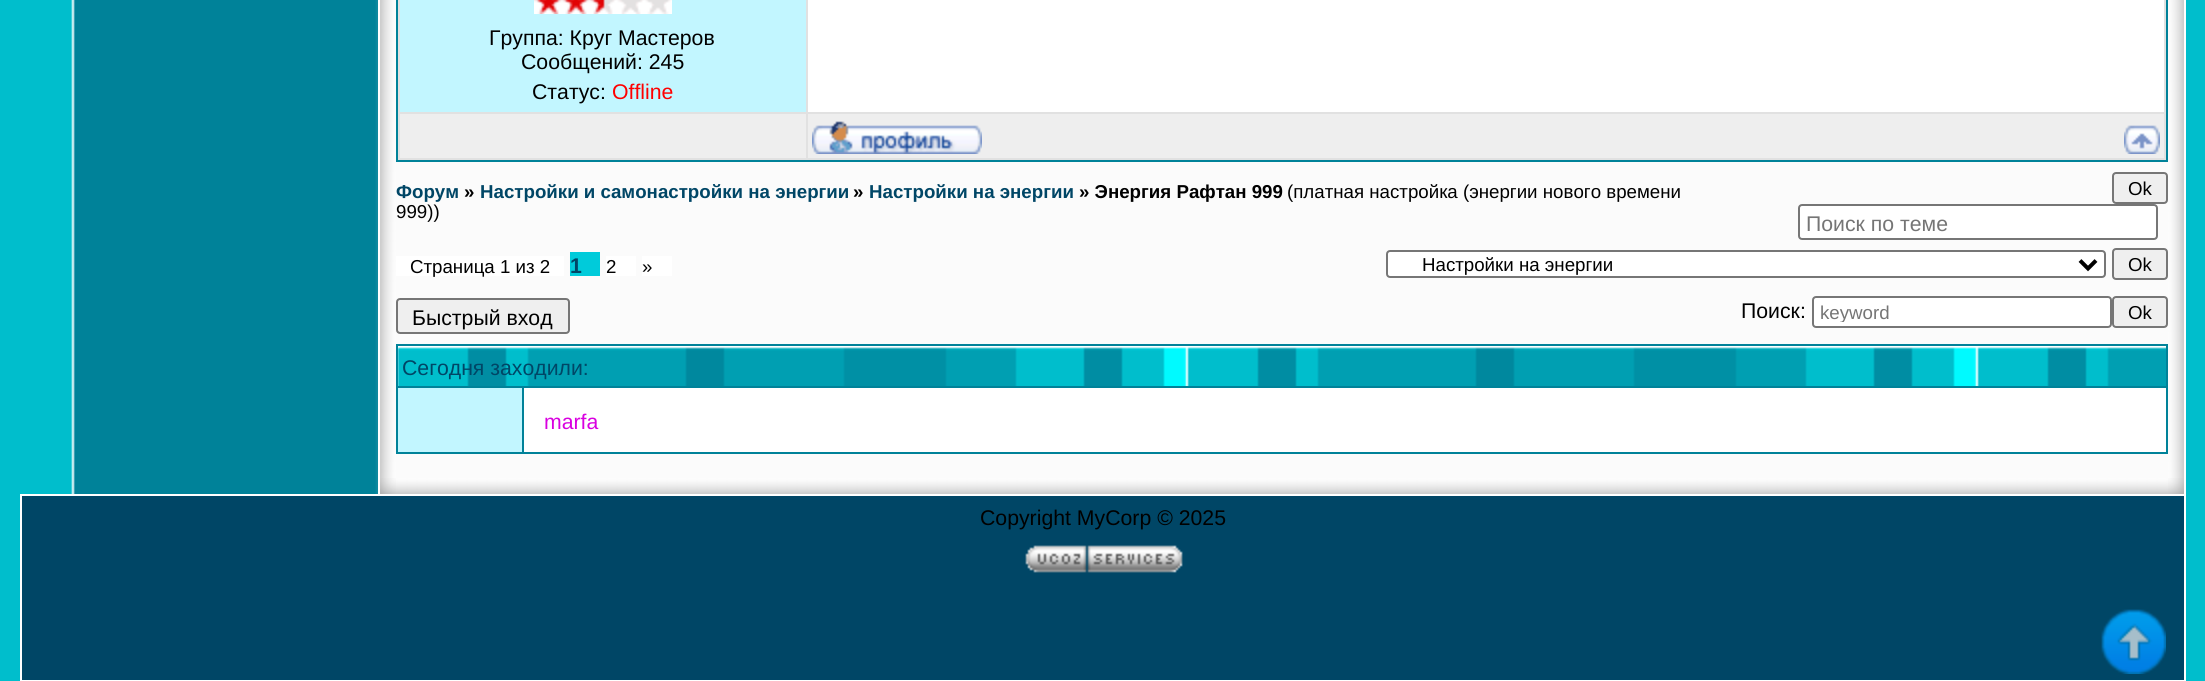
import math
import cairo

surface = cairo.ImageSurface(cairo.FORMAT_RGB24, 2205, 681)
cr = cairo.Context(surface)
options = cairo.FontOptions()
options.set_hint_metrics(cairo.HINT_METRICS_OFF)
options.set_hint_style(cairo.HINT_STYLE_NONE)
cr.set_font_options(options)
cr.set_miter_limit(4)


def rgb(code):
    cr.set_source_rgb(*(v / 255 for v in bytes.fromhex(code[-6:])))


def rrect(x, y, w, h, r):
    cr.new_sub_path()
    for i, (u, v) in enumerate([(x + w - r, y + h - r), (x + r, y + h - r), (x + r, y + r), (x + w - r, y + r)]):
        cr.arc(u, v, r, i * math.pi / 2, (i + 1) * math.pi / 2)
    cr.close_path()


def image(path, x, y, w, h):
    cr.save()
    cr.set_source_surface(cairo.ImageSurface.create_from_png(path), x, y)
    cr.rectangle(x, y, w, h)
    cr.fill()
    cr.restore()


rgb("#00becc")
cr.paint()
image("img/1.png", 71, 0, 307, 494)
rgb("#ffffff")
cr.rectangle(2184, 0, 2, 494)
cr.fill()
cr.rectangle(378, 0, 2, 494)
cr.fill()
image("img/2.png", 380, 0, 16, 478)
for x, y, w, h, color in [
    (396, 162, 1772, 316, "#fbfbfb"),
    (396, 0, 1772, 162, "#008299"),
    (398, 0, 1768, 160, "#e1e1e1"),
    (400, 0, 406, 112, "#c2f6ff"),
]:
    rgb(color)
    cr.rectangle(x, y, w, h)
    cr.fill()
image("img/3.png", 534, 0, 138, 14)
for x, y, w, h, color in [
    (808, 0, 1356, 112, "#ffffff"),
    (400, 114, 406, 44, "#eeeeee"),
    (808, 114, 1356, 44, "#eeeeee"),
]:
    rgb(color)
    cr.rectangle(x, y, w, h)
    cr.fill()
image("img/4.png", 812, 121, 170, 33)
image("img/5.png", 2124, 125, 36, 29)
rgb("#efefef")
rrect(2113, 173, 54, 30, 3)
cr.fill_preserve()
rgb("#767676")
cr.stroke()
rgb("#ffffff")
rrect(1799, 205, 358, 34, 3)
cr.fill_preserve()
rgb("#767676")
cr.stroke()
for x, y, w, h, color in [
    (396, 256, 168, 20, "#ffffff"),
    (570, 252, 30, 24, "#00cbda"),
    (606, 256, 30, 20, "#ffffff"),
    (642, 256, 30, 20, "#ffffff"),
]:
    rgb(color)
    cr.rectangle(x, y, w, h)
    cr.fill()
rrect(1387, 251, 718, 26, 3)
cr.fill_preserve()
rgb("#767676")
cr.stroke()
cr.new_path()
cr.move_to(2080, 260.5)
cr.line_to(2088, 268.5)
cr.line_to(2096, 260.5)
rgb("#000000")
cr.set_line_width(4)
cr.stroke()
rgb("#efefef")
rrect(2113, 249, 54, 30, 3)
cr.fill_preserve()
rgb("#767676")
cr.set_line_width(2)
cr.stroke()
rgb("#efefef")
rrect(397, 299, 172, 34, 3)
cr.fill_preserve()
rgb("#767676")
cr.stroke()
rgb("#ffffff")
rrect(1813, 297, 298, 30, 3)
cr.fill_preserve()
rgb("#767676")
cr.stroke()
rgb("#efefef")
rrect(2113, 297, 54, 30, 3)
cr.fill_preserve()
rgb("#767676")
cr.stroke()
rgb("#008299")
cr.rectangle(396, 344, 1772, 110)
cr.fill()
image("img/6.png", 398, 346, 1768, 40)
rgb("#c2f6ff")
cr.rectangle(398, 388, 124, 64)
cr.fill()
rgb("#ffffff")
cr.rectangle(524, 388, 1642, 64)
cr.fill()
image("img/7.png", 2168, 0, 16, 478)
image("img/8.png", 380, 478, 16, 16)
image("img/9.png", 396, 478, 1772, 16)
image("img/10.png", 2168, 478, 16, 16)
cr.rectangle(21, 495, 2164, 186)
cr.stroke()
rgb("#004666")
cr.rectangle(22, 496, 2162, 184)
cr.fill()
image("img/11.png", 1025, 545, 158, 28)
image("img/12.png", 2101, 609, 65, 65)
cr.select_font_face("Liberation Sans")
cr.set_font_size(21.25)
rgb("#000000")
for x, y, s in [
    (489, 45, "Группа: Круг Мастеров"),
    (521, 69, "Сообщений: 245"),
    (532, 99, "Статус:"),
]:
    cr.move_to(x, y)
    cr.show_text(s)
rgb("#ff0000")
cr.move_to(612, 99)
cr.show_text("Offline")
cr.select_font_face("Liberation Sans", cairo.FONT_SLANT_NORMAL, cairo.FONT_WEIGHT_BOLD)
cr.set_font_size(18.7)
rgb("#004666")
cr.move_to(396, 198)
cr.show_text("Форум")
rgb("#000000")
cr.move_to(464, 198)
cr.show_text("»")
rgb("#004666")
cr.move_to(480, 198)
cr.show_text("Настройки и самонастройки на энергии")
rgb("#000000")
cr.move_to(853, 198)
cr.show_text("»")
rgb("#004666")
cr.move_to(869, 198)
cr.show_text("Настройки на энергии")
rgb("#000000")
cr.move_to(1079, 198)
cr.show_text("» Энергия Рафтан 999")
cr.select_font_face("Liberation Sans")
for x, y, s in [
    (1287, 198, "(платная настройка (энергии нового времени"),
    (396, 218, "999))"),
    (2128, 195, "Ok"),
]:
    cr.move_to(x, y)
    cr.show_text(s)
cr.set_font_size(21.25)
rgb("#757575")
cr.move_to(1806, 231)
cr.show_text("Поиск по теме")
cr.set_font_size(18.7)
rgb("#000000")
cr.move_to(410, 273)
cr.show_text("Страница 1 из 2")
cr.select_font_face("Liberation Sans", cairo.FONT_SLANT_NORMAL, cairo.FONT_WEIGHT_BOLD)
cr.set_font_size(21.25)
rgb("#004666")
cr.move_to(570, 273)
cr.show_text("1")
cr.select_font_face("Liberation Sans")
cr.set_font_size(18.7)
rgb("#000000")
for x, y, s in [
    (606, 273, "2"),
    (642, 273, "»"),
    (1422, 271, "Настройки на энергии"),
    (2128, 271, "Ok"),
]:
    cr.move_to(x, y)
    cr.show_text(s)
cr.set_font_size(21.25)
cr.move_to(412, 325)
cr.show_text("Быстрый вход")
cr.move_to(1741, 318)
cr.show_text("Поиск:")
cr.save()
cr.rectangle(1820, 302, 284, 20)
cr.clip()
cr.set_font_size(18.7)
rgb("#757575")
cr.move_to(1820, 319)
cr.show_text("keyword")
cr.restore()
cr.set_font_size(18.7)
cr.move_to(2128, 319)
cr.show_text("Ok")
cr.set_font_size(21.25)
rgb("#004666")
cr.move_to(402, 375)
cr.show_text("Сегодня заходили:")
rgb("#d900e0")
cr.move_to(544, 429)
cr.show_text("marfa")
rgb("#000000")
cr.move_to(980, 525)
cr.show_text("Copyright MyCorp © 2025")
surface.write_to_png("page.png")
